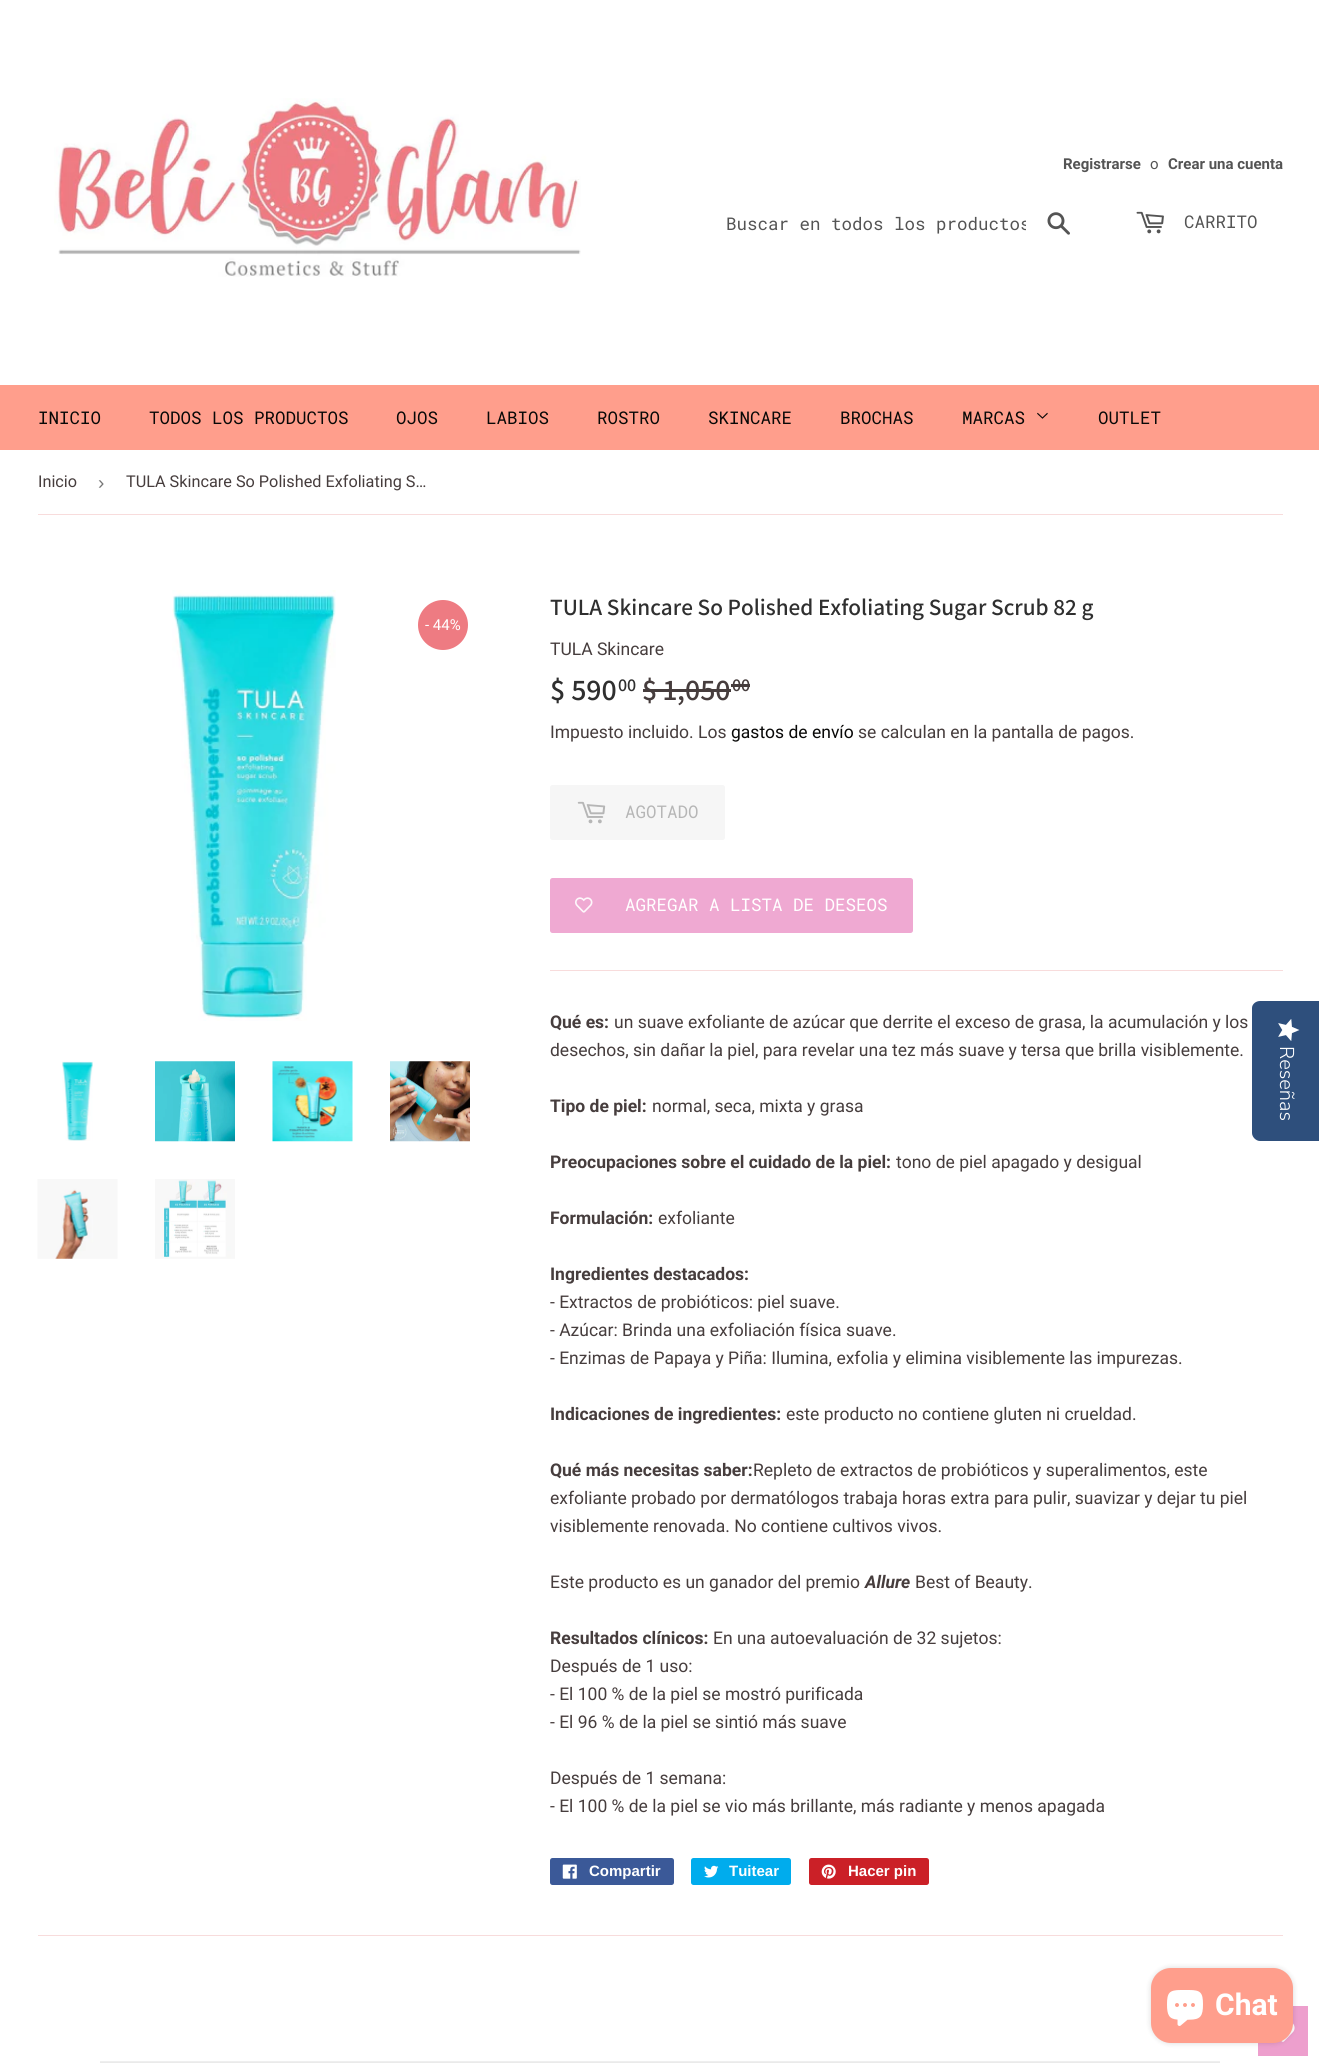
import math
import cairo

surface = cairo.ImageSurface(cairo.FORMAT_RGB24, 1319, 2068)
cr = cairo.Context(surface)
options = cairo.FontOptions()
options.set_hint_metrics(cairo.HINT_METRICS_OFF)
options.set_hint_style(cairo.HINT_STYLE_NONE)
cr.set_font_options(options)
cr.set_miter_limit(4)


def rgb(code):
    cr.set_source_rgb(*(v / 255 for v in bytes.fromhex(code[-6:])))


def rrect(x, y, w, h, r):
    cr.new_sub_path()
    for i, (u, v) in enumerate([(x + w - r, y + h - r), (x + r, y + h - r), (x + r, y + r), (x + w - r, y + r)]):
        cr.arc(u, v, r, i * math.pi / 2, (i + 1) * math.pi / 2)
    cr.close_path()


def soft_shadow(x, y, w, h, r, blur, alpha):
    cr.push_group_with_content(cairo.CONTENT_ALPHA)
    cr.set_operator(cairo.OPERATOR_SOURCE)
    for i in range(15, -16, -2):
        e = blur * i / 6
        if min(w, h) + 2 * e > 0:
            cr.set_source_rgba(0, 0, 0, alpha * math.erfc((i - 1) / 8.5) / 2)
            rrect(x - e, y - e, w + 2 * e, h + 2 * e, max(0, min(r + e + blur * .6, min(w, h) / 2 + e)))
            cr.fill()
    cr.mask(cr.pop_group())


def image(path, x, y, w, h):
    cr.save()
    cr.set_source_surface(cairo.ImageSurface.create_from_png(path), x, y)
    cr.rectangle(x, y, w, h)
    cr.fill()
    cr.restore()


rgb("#ffffff")
cr.paint()
image("img/1.png", 54, 98, 527, 179)
image("img/2.png", 1047, 212, 23, 23)
image("img/3.png", 1136, 211, 28, 23)
rgb("#ff9e8c")
cr.rectangle(0, 385, 1319, 65)
cr.fill()
image("img/4.png", 1037, 412, 11, 7)
rgb("#f8dcdc")
cr.rectangle(38, 514, 1245, 1)
cr.fill()
image("img/5.png", 172, 590, 164, 431)
rgb("#ee7b82")
cr.arc(443, 625, 25, 0, 2 * math.pi)
cr.fill()
image("img/6.png", 62, 1061, 31, 80)
image("img/7.png", 155, 1061, 80, 81)
image("img/8.png", 272, 1061, 81, 81)
image("img/9.png", 390, 1061, 80, 81)
image("img/10.png", 37, 1179, 81, 80)
image("img/11.png", 155, 1179, 80, 80)
rgb("#463d3d")
cr.rectangle(643, 689, 88, 3)
cr.fill()
cr.rectangle(731, 684, 19, 3)
cr.fill()
rgb("#f6f6f6")
rrect(550, 785, 175, 55, 2.5)
cr.fill()
image("img/12.png", 577, 801, 29, 23)
rgb("#efa9d2")
rrect(550, 878, 363, 55, 2.5)
cr.fill()
image("img/13.png", 575, 897, 18, 16)
rgb("#f8dcdc")
cr.rectangle(550, 970, 733, 1)
cr.fill()
rgb("#3b5998")
rrect(550, 1858, 124, 27, 2.5)
cr.fill()
image("img/14.png", 562, 1864, 15, 15)
rgb("#00aced")
rrect(691, 1858, 100, 27, 2.5)
cr.fill()
image("img/15.png", 704, 1865, 15, 13)
rgb("#cb2027")
rrect(809, 1858, 120, 27, 2.5)
cr.fill()
image("img/16.png", 821, 1864, 15, 15)
rgb("#f8dcdc")
cr.rectangle(38, 1935, 1245, 1)
cr.fill()
image("img/17.png", 100, 2061, 1120, 2)
rgb("#2e4f7c")
cr.new_path()
cr.move_to(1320, 1001)
cr.line_to(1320, 1141)
cr.line_to(1260, 1141)
cr.curve_to(1256, 1141, 1252, 1137, 1252, 1133)
cr.line_to(1252, 1008)
cr.curve_to(1252, 1004, 1256, 1001, 1260, 1001)
cr.close_path()
cr.fill()
image("img/18.png", 1278, 1019, 22, 22)
rgb("#ed9fcd")
cr.rectangle(1258, 2006, 50, 50)
cr.fill()
image("img/20.png", 1281, 2023, 14, 19)
rgb("#000000")
soft_shadow(1151, 1968, 142, 75, 20, 3, 0.15)
rgb("#ff9e8c")
rrect(1151, 1968, 142, 75, 20)
cr.fill()
image("img/19.png", 1167, 1990, 36, 36)
cr.select_font_face("Roboto", cairo.FONT_SLANT_NORMAL, cairo.FONT_WEIGHT_BOLD)
cr.set_font_size(15)
rgb("#545454")
cr.move_to(1063, 169)
cr.show_text("Registrarse")
cr.select_font_face("Roboto")
cr.move_to(1150, 169)
cr.show_text("o")
cr.select_font_face("Roboto", cairo.FONT_SLANT_NORMAL, cairo.FONT_WEIGHT_BOLD)
cr.move_to(1168, 169)
cr.show_text("Crear una cuenta")
cr.save()
cr.rectangle(726, 211, 300, 24)
cr.clip()
cr.select_font_face("Roboto Mono")
cr.set_font_size(17.5)
cr.move_to(726, 230)
cr.show_text("Buscar en todos los productos")
cr.restore()
cr.select_font_face("Roboto Mono")
cr.set_font_size(17.5)
cr.move_to(1184, 228)
cr.show_text("CARRITO")
rgb("#080807")
for x, y, s in [
    (38, 424, "INICIO"),
    (149, 424, "TODOS LOS PRODUCTOS"),
    (396, 424, "OJOS"),
    (486, 424, "LABIOS"),
    (597, 424, "ROSTRO"),
    (708, 424, "SKINCARE"),
    (840, 424, "BROCHAS"),
    (962, 424, "MARCAS"),
    (1098, 424, "OUTLET"),
]:
    cr.move_to(x, y)
    cr.show_text(s)
cr.select_font_face("Roboto")
cr.set_font_size(16.25)
rgb("#463d3d")
cr.move_to(38, 487)
cr.show_text("Inicio")
cr.select_font_face("Liberation Sans")
cr.set_font_size(19)
rgb("#767676")
cr.move_to(98, 489)
cr.show_text("›")
cr.select_font_face("Roboto")
cr.set_font_size(16.25)
rgb("#463d3d")
cr.move_to(126, 487)
cr.show_text("TULA Skincare So Polished Exfoliating S…")
cr.set_font_size(15)
rgb("#ffffff")
cr.move_to(425, 630)
cr.show_text("- 44%")
cr.select_font_face("Assistant SemiBold")
cr.set_font_size(23.3)
rgb("#2f2f2f")
cr.move_to(550, 615)
cr.show_text("TULA Skincare So Polished Exfoliating Sugar Scrub 82 g")
cr.select_font_face("Roboto")
cr.set_font_size(17.5)
rgb("#463d3d")
cr.move_to(550, 655)
cr.show_text("TULA Skincare")
cr.select_font_face("Assistant SemiBold")
cr.set_font_size(30)
rgb("#2f2f2f")
cr.move_to(550, 700)
cr.show_text("$ 590")
cr.set_font_size(18)
cr.move_to(618, 691)
cr.show_text("00")
cr.set_font_size(30)
rgb("#463d3d")
cr.move_to(642, 700)
cr.show_text("$ 1,050")
cr.set_font_size(18)
cr.move_to(732, 691)
cr.show_text("00")
cr.select_font_face("Roboto")
cr.set_font_size(17.5)
cr.move_to(550, 738)
cr.show_text("Impuesto incluido. Los")
rgb("#080807")
cr.move_to(731, 738)
cr.show_text("gastos de envío")
rgb("#463d3d")
cr.move_to(858, 738)
cr.show_text("se calculan en la pantalla de pagos.")
cr.select_font_face("Roboto Mono")
rgb("#b6b6b6")
cr.move_to(625, 818)
cr.show_text("AGOTADO")
rgb("#ffffff")
cr.move_to(625, 911)
cr.show_text("AGREGAR A LISTA DE DESEOS")
cr.select_font_face("Roboto", cairo.FONT_SLANT_NORMAL, cairo.FONT_WEIGHT_BOLD)
rgb("#463d3d")
cr.move_to(550, 1028)
cr.show_text("Qué es:")
cr.select_font_face("Roboto")
cr.move_to(614, 1028)
cr.show_text("un suave exfoliante de azúcar que derrite el exceso de grasa, la acumulación y los")
cr.move_to(550, 1056)
cr.show_text("desechos, sin dañar la piel, para revelar una tez más suave y tersa que brilla visiblemente.")
cr.select_font_face("Roboto", cairo.FONT_SLANT_NORMAL, cairo.FONT_WEIGHT_BOLD)
cr.move_to(550, 1112)
cr.show_text("Tipo de piel:")
cr.select_font_face("Roboto")
cr.move_to(652, 1112)
cr.show_text("normal, seca, mixta y grasa")
cr.select_font_face("Roboto", cairo.FONT_SLANT_NORMAL, cairo.FONT_WEIGHT_BOLD)
cr.move_to(550, 1168)
cr.show_text("Preocupaciones sobre el cuidado de la piel:")
cr.select_font_face("Roboto")
cr.move_to(896, 1168)
cr.show_text("tono de piel apagado y desigual")
cr.select_font_face("Roboto", cairo.FONT_SLANT_NORMAL, cairo.FONT_WEIGHT_BOLD)
cr.move_to(550, 1224)
cr.show_text("Formulación:")
cr.select_font_face("Roboto")
cr.move_to(658, 1224)
cr.show_text("exfoliante")
cr.select_font_face("Roboto", cairo.FONT_SLANT_NORMAL, cairo.FONT_WEIGHT_BOLD)
cr.move_to(550, 1280)
cr.show_text("Ingredientes destacados:")
cr.select_font_face("Roboto")
for x, y, s in [
    (550, 1308, "- Extractos de probióticos: piel suave."),
    (550, 1336, "- Azúcar: Brinda una exfoliación física suave."),
    (550, 1364, "- Enzimas de Papaya y Piña: Ilumina, exfolia y elimina visiblemente las impurezas."),
]:
    cr.move_to(x, y)
    cr.show_text(s)
cr.select_font_face("Roboto", cairo.FONT_SLANT_NORMAL, cairo.FONT_WEIGHT_BOLD)
cr.move_to(550, 1420)
cr.show_text("Indicaciones de ingredientes:")
cr.select_font_face("Roboto")
cr.move_to(786, 1420)
cr.show_text("este producto no contiene gluten ni crueldad.")
cr.select_font_face("Roboto", cairo.FONT_SLANT_NORMAL, cairo.FONT_WEIGHT_BOLD)
cr.move_to(550, 1476)
cr.show_text("Qué más necesitas saber:")
cr.select_font_face("Roboto")
for x, y, s in [
    (753, 1476, "Repleto de extractos de probióticos y superalimentos, este"),
    (550, 1504, "exfoliante probado por dermatólogos trabaja horas extra para pulir, suavizar y dejar tu piel"),
    (550, 1532, "visiblemente renovada. No contiene cultivos vivos."),
    (550, 1588, "Este producto es un ganador del premio"),
]:
    cr.move_to(x, y)
    cr.show_text(s)
cr.select_font_face("Roboto", cairo.FONT_SLANT_ITALIC, cairo.FONT_WEIGHT_BOLD)
cr.move_to(865, 1588)
cr.show_text("Allure")
cr.select_font_face("Roboto")
cr.move_to(915, 1588)
cr.show_text("Best of Beauty.")
cr.select_font_face("Roboto", cairo.FONT_SLANT_NORMAL, cairo.FONT_WEIGHT_BOLD)
cr.move_to(550, 1644)
cr.show_text("Resultados clínicos:")
cr.select_font_face("Roboto")
for x, y, s in [
    (713, 1644, "En una autoevaluación de 32 sujetos:"),
    (550, 1672, "Después de 1 uso:"),
    (550, 1700, "- El 100 % de la piel se mostró purificada"),
    (550, 1728, "- El 96 % de la piel se sintió más suave"),
    (550, 1784, "Después de 1 semana:"),
    (550, 1812, "- El 100 % de la piel se vio más brillante, más radiante y menos apagada"),
]:
    cr.move_to(x, y)
    cr.show_text(s)
cr.select_font_face("Liberation Sans", cairo.FONT_SLANT_NORMAL, cairo.FONT_WEIGHT_BOLD)
cr.set_font_size(15)
rgb("#ffffff")
for x, y, s in [
    (589, 1876, "Compartir"),
    (729, 1876, "Tuitear"),
    (848, 1876, "Hacer pin"),
]:
    cr.move_to(x, y)
    cr.show_text(s)
cr.select_font_face("Nunito Sans Light")
cr.set_font_size(20)
cr.save()
cr.translate(1280, 1046)
cr.rotate(90 * math.pi / 180)
cr.move_to(0, 0)
cr.show_text("Reseñas")
cr.restore()
cr.select_font_face("Roboto", cairo.FONT_SLANT_NORMAL, cairo.FONT_WEIGHT_BOLD)
cr.set_font_size(30)
cr.move_to(1215, 2015)
cr.show_text("Chat")
surface.write_to_png("page.png")
